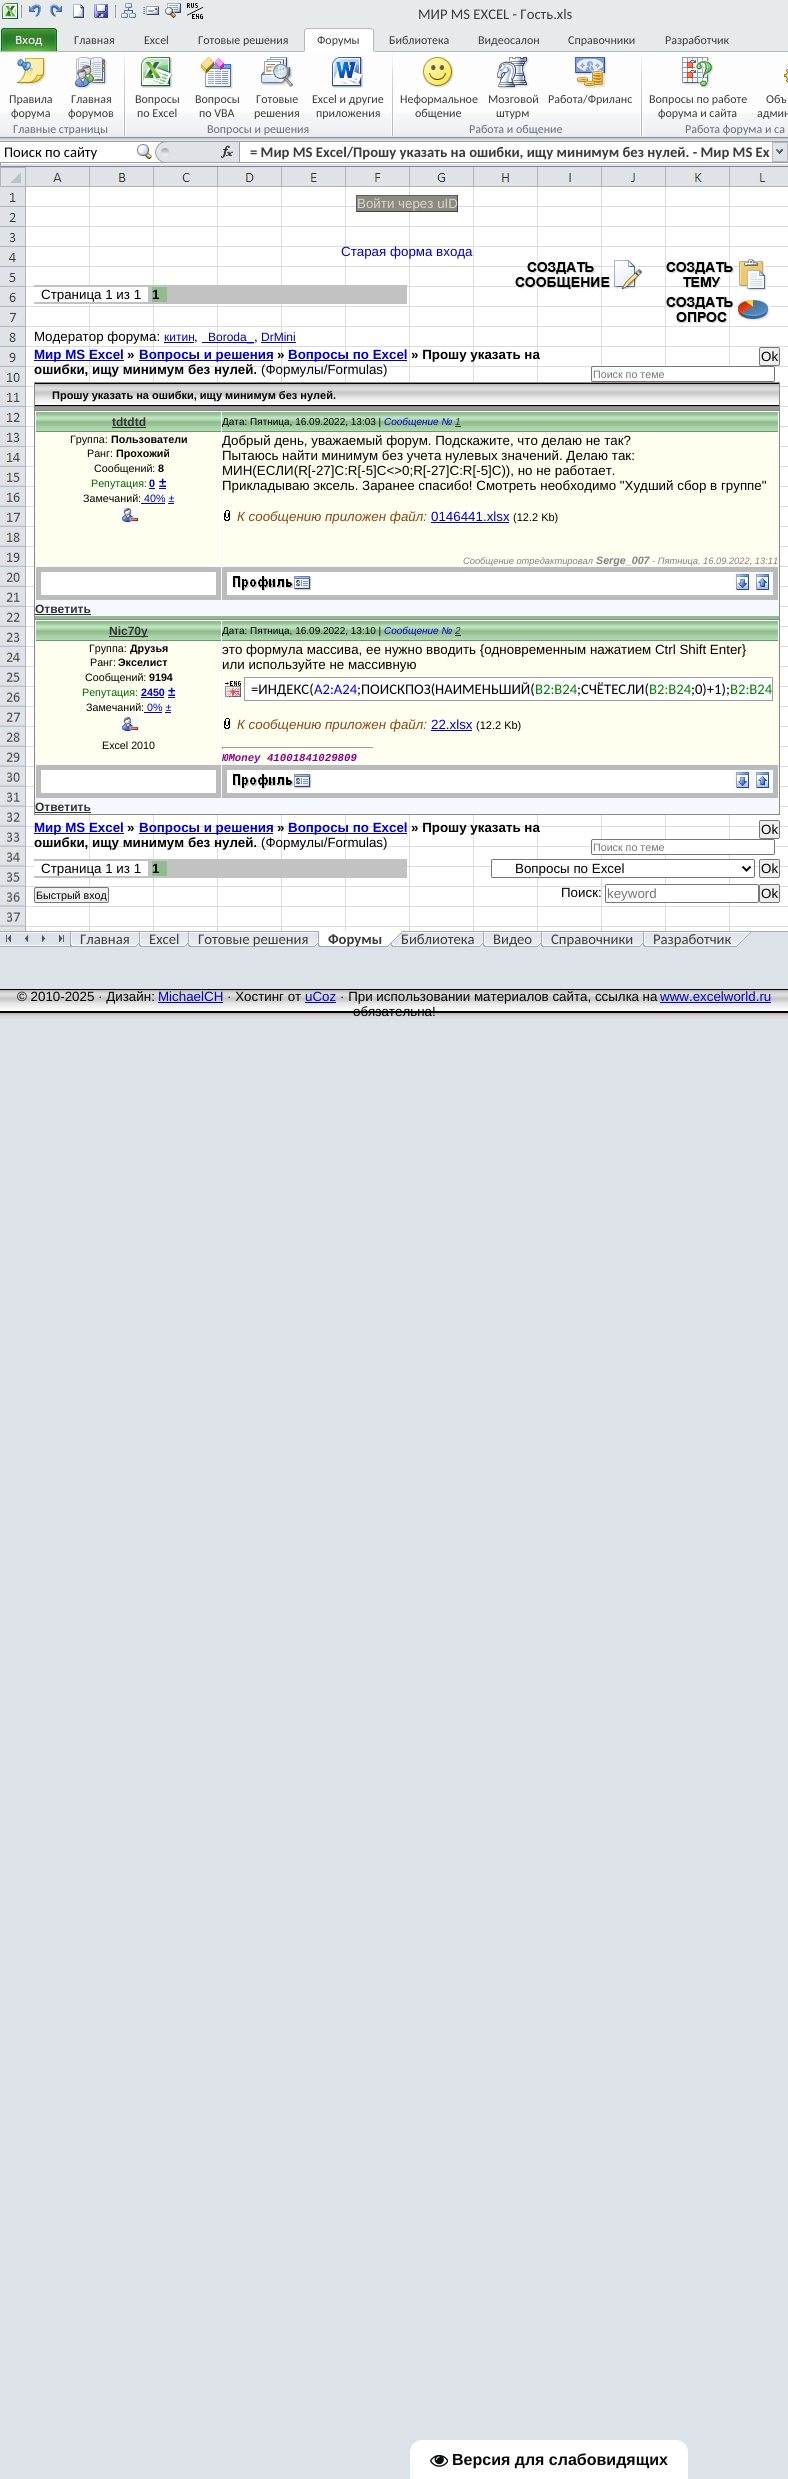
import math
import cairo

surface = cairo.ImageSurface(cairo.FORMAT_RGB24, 788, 2479)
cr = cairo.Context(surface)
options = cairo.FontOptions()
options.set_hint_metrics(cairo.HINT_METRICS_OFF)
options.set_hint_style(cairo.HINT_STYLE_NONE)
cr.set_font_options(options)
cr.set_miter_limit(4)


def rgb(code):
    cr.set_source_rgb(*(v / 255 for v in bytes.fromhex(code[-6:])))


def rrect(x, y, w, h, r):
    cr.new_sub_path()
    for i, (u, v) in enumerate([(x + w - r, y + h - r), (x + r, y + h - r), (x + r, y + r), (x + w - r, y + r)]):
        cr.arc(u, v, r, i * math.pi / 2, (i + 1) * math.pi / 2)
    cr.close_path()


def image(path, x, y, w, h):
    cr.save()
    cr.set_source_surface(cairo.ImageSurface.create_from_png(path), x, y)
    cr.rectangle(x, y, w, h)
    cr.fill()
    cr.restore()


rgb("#dce2e8")
cr.paint()
rgb("#e6eaeb")
cr.rectangle(0, 0, 788, 51)
cr.fill()
image("img/1.png", 2, 3, 16, 16)
image("img/2.png", 20, 4, 3, 15)
image("img/3.png", 29, 4, 12, 13)
image("img/4.png", 50, 4, 12, 13)
image("img/5.png", 73, 4, 11, 14)
image("img/6.png", 94, 4, 14, 14)
image("img/2.png", 114, 4, 3, 15)
image("img/7.png", 121, 3, 15, 15)
image("img/8.png", 143, 6, 16, 9)
image("img/9.png", 165, 3, 16, 15)
image("img/10.png", 187, 3, 16, 16)
rgb("#b6babf")
cr.rectangle(0, 51, 788, 1)
cr.fill()
image("img/11.png", 1, 28, 56, 23)
rgb("#ffffff")
cr.new_path()
cr.move_to(307, 28)
cr.line_to(371, 28)
cr.curve_to(372.5, 28, 374, 29.5, 374, 31)
cr.line_to(374, 52)
cr.line_to(304, 52)
cr.line_to(304, 31)
cr.curve_to(304, 29.5, 305.5, 28, 307, 28)
cr.close_path()
cr.fill()
rgb("#b6babf")
cr.new_path()
cr.move_to(307, 28)
cr.line_to(305, 29)
cr.line_to(306, 30)
cr.line_to(307, 29)
cr.line_to(371, 29)
cr.line_to(372, 30)
cr.line_to(373, 29)
cr.line_to(371, 28)
cr.close_path()
cr.fill()
cr.new_path()
cr.move_to(374, 52)
cr.line_to(374, 31)
cr.curve_to(374, 30, 374, 29, 373, 29)
cr.line_to(372.5, 29.5)
cr.curve_to(373, 30, 373, 30.5, 373, 31)
cr.line_to(373, 51)
cr.close_path()
cr.fill()
rgb("#ffffff")
cr.new_path()
cr.move_to(374, 52)
cr.line_to(373, 51)
cr.line_to(305, 51)
cr.line_to(304, 52)
cr.close_path()
cr.fill()
rgb("#b6babf")
cr.new_path()
cr.move_to(304, 52)
cr.line_to(305, 51)
cr.line_to(305, 31)
cr.curve_to(305, 30.5, 305, 30, 305.5, 29.5)
cr.line_to(305, 29)
cr.curve_to(304, 29, 304, 30, 304, 31)
cr.close_path()
cr.fill()
rgb("#fdfdfd")
cr.rectangle(0, 52, 788, 61)
cr.fill()
image("img/12.png", 0, 113, 788, 29)
image("img/13.png", 123, 52, 3, 84)
image("img/14.png", 17, 58, 29, 27)
image("img/15.png", 75, 57, 32, 32)
image("img/13.png", 391, 52, 3, 84)
image("img/16.png", 141, 57, 32, 31)
image("img/17.png", 201, 57, 32, 32)
image("img/18.png", 261, 57, 32, 30)
image("img/19.png", 332, 57, 32, 31)
image("img/13.png", 640, 52, 3, 84)
image("img/20.png", 423, 57, 31, 31)
image("img/21.png", 497, 57, 32, 32)
image("img/22.png", 575, 57, 32, 32)
image("img/23.png", 682, 57, 32, 31)
image("img/24.png", 784, 69, 4, 15)
rgb("#ffffff")
cr.rectangle(0, 142, 772, 20)
cr.fill()
image("img/25.png", 155, 142, 85, 20)
image("img/26.png", 137, 144, 15, 15)
image("img/27.png", 772, 142, 16, 20)
image("img/28.png", 0, 162, 788, 25)
image("img/29.png", 0, 187, 26, 744)
image("img/30.png", 26, 187, 762, 744)
for x, y, w, h, color in [
    (357, 196, 100, 15, "#8d8a83"),
    (356, 195, 102, 1, "#615e58"),
    (457, 195, 1, 17, "#413f3b"),
    (356, 211, 102, 1, "#413f3b"),
    (356, 195, 1, 17, "#615e58"),
    (34, 285, 373, 19, "#c2c2c2"),
    (34, 287, 114, 15, "#ffffff"),
    (152, 287, 15, 15, "#90bc90"),
]:
    rgb(color)
    cr.rectangle(x, y, w, h)
    cr.fill()
image("img/31.png", 515, 260, 128, 31)
image("img/32.png", 666, 259, 101, 32)
image("img/33.png", 666, 297, 104, 27)
for x, y, w, h, color in [
    (164, 342, 30, 1, "#0000cd"),
    (202, 342, 52, 1, "#0000cd"),
    (261, 342, 35, 1, "#0000cd"),
    (34, 360, 90, 1, "#0000cd"),
    (139, 360, 134, 1, "#0000cd"),
    (288, 360, 119, 1, "#0000cd"),
]:
    rgb(color)
    cr.rectangle(x, y, w, h)
    cr.fill()
rgb("#efefef")
rrect(759.5, 347.5, 20, 18, 1.5)
cr.fill_preserve()
rgb("#767676")
cr.set_line_width(1)
cr.stroke()
rgb("#ffffff")
rrect(591.5, 366.5, 183, 15, 1.5)
cr.fill_preserve()
rgb("#767676")
cr.stroke()
rgb("#8c8a82")
cr.rectangle(34, 382, 746, 433)
cr.fill()
image("img/34.png", 35, 383, 744, 23)
for x, y, w, h, color in [
    (35, 407, 744, 3, "#999999"),
    (35, 411, 744, 205, "#f5f9fd"),
    (35, 616, 744, 3, "#90bc90"),
    (36, 412, 185, 2, "#90bc90"),
]:
    rgb(color)
    cr.rectangle(x, y, w, h)
    cr.fill()
image("img/35.png", 36, 414, 185, 17)
for x, y, w, h, color in [
    (36, 431, 185, 1, "#669966"),
    (112, 427, 34, 1, "#333333"),
    (222, 412, 556, 2, "#90bc90"),
]:
    rgb(color)
    cr.rectangle(x, y, w, h)
    cr.fill()
image("img/36.png", 222, 414, 556, 17)
for x, y, w, h, color in [
    (222, 431, 556, 1, "#669966"),
    (455, 426, 6, 1, "#333333"),
    (36, 433, 185, 133, "#fffff0"),
    (149, 488, 6, 1, "#0000cd"),
    (159, 488, 7, 1, "#0000cd"),
    (141, 503, 24, 1, "#0000cd"),
    (168, 503, 6, 1, "#0000cd"),
]:
    rgb(color)
    cr.rectangle(x, y, w, h)
    cr.fill()
image("img/37.png", 119, 505, 20, 20)
rgb("#fffff0")
cr.rectangle(222, 433, 556, 133)
cr.fill()
image("img/38.png", 224, 510, 6, 11)
rgb("#0000cd")
cr.rectangle(431, 522, 78, 1)
cr.fill()
rgb("#ffffff")
cr.rectangle(38.5, 569.5, 180, 28)
cr.fill_preserve()
rgb("#bbbbbb")
cr.set_line_width(5)
cr.stroke()
rgb("#ffffff")
cr.rectangle(224.5, 569.5, 551, 28)
cr.fill_preserve()
rgb("#bbbbbb")
cr.stroke()
image("img/39.png", 233, 576, 79, 16)
image("img/40.png", 733, 572, 20, 20)
image("img/41.png", 753, 572, 20, 20)
for x, y, w, h, color in [
    (35, 614, 56, 1, "#333333"),
    (35, 620, 744, 194, "#f5f9fd"),
    (36, 621, 185, 2, "#90bc90"),
]:
    rgb(color)
    cr.rectangle(x, y, w, h)
    cr.fill()
image("img/35.png", 36, 623, 185, 17)
for x, y, w, h, color in [
    (36, 640, 185, 1, "#669966"),
    (109, 636, 39, 1, "#333333"),
    (222, 621, 556, 2, "#90bc90"),
]:
    rgb(color)
    cr.rectangle(x, y, w, h)
    cr.fill()
image("img/36.png", 222, 623, 556, 17)
for x, y, w, h, color in [
    (222, 640, 556, 1, "#669966"),
    (455, 635, 6, 1, "#333333"),
    (36, 642, 185, 122, "#fffff0"),
    (141, 697, 23, 1, "#0000cd"),
    (168, 697, 7, 1, "#0000cd"),
    (144, 712, 18, 1, "#0000cd"),
    (165, 712, 6, 1, "#0000cd"),
]:
    rgb(color)
    cr.rectangle(x, y, w, h)
    cr.fill()
image("img/37.png", 119, 714, 20, 20)
rgb("#fffff0")
cr.rectangle(222, 642, 556, 122)
cr.fill()
image("img/42.png", 225, 681, 16, 16)
rgb("#ffffff")
cr.rectangle(244.5, 677.5, 528, 23)
cr.fill_preserve()
rgb("#9aa0a6")
cr.set_line_width(1)
cr.stroke()
image("img/38.png", 224, 718, 6, 11)
for x, y, w, h, color in [
    (431, 730, 41, 1, "#0000cd"),
    (222, 747, 152, 1, "#9f9f9f"),
    (373, 747, 1, 2, "#eeeeee"),
    (222, 747, 1, 2, "#9f9f9f"),
]:
    rgb(color)
    cr.rectangle(x, y, w, h)
    cr.fill()
rgb("#ffffff")
cr.rectangle(38.5, 767.5, 180, 28)
cr.fill_preserve()
rgb("#bbbbbb")
cr.set_line_width(5)
cr.stroke()
rgb("#ffffff")
cr.rectangle(224.5, 767.5, 551, 28)
cr.fill_preserve()
rgb("#bbbbbb")
cr.stroke()
image("img/39.png", 233, 774, 79, 16)
image("img/40.png", 733, 770, 20, 20)
image("img/41.png", 753, 770, 20, 20)
for x, y, w, h, color in [
    (35, 812, 56, 1, "#333333"),
    (34, 833, 90, 1, "#0000cd"),
    (139, 833, 134, 1, "#0000cd"),
    (288, 833, 119, 1, "#0000cd"),
]:
    rgb(color)
    cr.rectangle(x, y, w, h)
    cr.fill()
rgb("#efefef")
rrect(759.5, 820.5, 20, 18, 1.5)
cr.fill_preserve()
rgb("#767676")
cr.set_line_width(1)
cr.stroke()
rgb("#ffffff")
rrect(591.5, 839.5, 183, 15, 1.5)
cr.fill_preserve()
rgb("#767676")
cr.stroke()
for x, y, w, h, color in [
    (34, 859, 373, 19, "#c2c2c2"),
    (34, 861, 114, 15, "#ffffff"),
    (152, 861, 15, 15, "#90bc90"),
]:
    rgb(color)
    cr.rectangle(x, y, w, h)
    cr.fill()
rgb("#ffffff")
rrect(491.5, 859.5, 263, 18, 1.5)
cr.fill_preserve()
rgb("#767676")
cr.stroke()
cr.new_path()
cr.move_to(742.5, 866.5)
cr.line_to(746.5, 870.5)
cr.line_to(750.5, 866.5)
rgb("#000000")
cr.set_line_width(2)
cr.stroke()
rgb("#efefef")
rrect(759.5, 859.5, 20, 18, 1.5)
cr.fill_preserve()
rgb("#767676")
cr.set_line_width(1)
cr.stroke()
rgb("#efefef")
rrect(34.5, 887.5, 74, 15, 1.5)
cr.fill_preserve()
rgb("#767676")
cr.stroke()
rgb("#ffffff")
rrect(605.5, 884.5, 153, 18, 1.5)
cr.fill_preserve()
rgb("#767676")
cr.stroke()
rgb("#efefef")
rrect(759.5, 884.5, 20, 18, 1.5)
cr.fill_preserve()
rgb("#767676")
cr.stroke()
image("img/43.png", 0, 932, 72, 15)
image("img/44.png", 6, 935, 5, 7)
image("img/45.png", 24, 935, 5, 7)
image("img/46.png", 41, 935, 5, 7)
image("img/47.png", 59, 935, 5, 7)
rgb("#a6acb3")
cr.rectangle(0, 931, 788, 1)
cr.fill()
image("img/48.png", 70, 932, 65, 15)
image("img/49.png", 135, 932, 5, 15)
image("img/50.png", 139, 932, 45, 15)
image("img/51.png", 184, 932, 6, 15)
image("img/52.png", 188, 932, 126, 15)
image("img/53.png", 314, 932, 4, 15)
image("img/54.png", 318, 931, 15, 16)
image("img/56.png", 391, 932, 88, 15)
image("img/49.png", 479, 932, 5, 15)
image("img/57.png", 483, 932, 54, 15)
image("img/51.png", 537, 932, 6, 15)
image("img/58.png", 541, 932, 98, 15)
image("img/49.png", 639, 932, 5, 15)
image("img/59.png", 643, 932, 93, 15)
image("img/60.png", 736, 932, 15, 15)
image("img/61.png", 0, 989, 788, 30)
for x, y, w, h, color in [
    (158, 1002, 65, 1, "#0000cd"),
    (305, 1002, 31, 1, "#0000cd"),
    (660, 1002, 111, 1, "#0000cd"),
]:
    rgb(color)
    cr.rectangle(x, y, w, h)
    cr.fill()
rgb("#ffffff")
cr.new_path()
cr.move_to(422, 2440)
cr.line_to(676, 2440)
cr.curve_to(682.5, 2440, 688, 2445.5, 688, 2452)
cr.line_to(688, 2479)
cr.line_to(410, 2479)
cr.line_to(410, 2452)
cr.curve_to(410, 2445.5, 415.5, 2440, 422, 2440)
cr.close_path()
cr.fill()
image("img/62.png", 430, 2454, 18, 13)
cr.select_font_face("Carlito")
cr.set_font_size(14.65)
rgb("#3b3b3b")
cr.move_to(418, 19)
cr.show_text("МИР MS EXCEL - Гость.xls")
cr.set_font_size(12)
for x, y, s in [
    (74, 44, "Главная"),
    (144, 44, "Excel"),
    (198, 44, "Готовые решения"),
    (317, 44, "Форумы"),
    (389, 44, "Библиотека"),
    (478, 44, "Видеосалон"),
    (568, 44, "Справочники"),
    (665, 44, "Разработчик"),
    (9, 103, "Правила"),
    (11, 117, "форума"),
    (71, 103, "Главная"),
    (68, 117, "форумов"),
]:
    cr.move_to(x, y)
    cr.show_text(s)
rgb("#666d7c")
cr.move_to(13, 133)
cr.show_text("Главные страницы")
rgb("#3b3b3b")
for x, y, s in [
    (135, 103, "Вопросы"),
    (137, 117, "по Excel"),
    (195, 103, "Вопросы"),
    (199, 117, "по VBA"),
    (256, 103, "Готовые"),
    (254, 117, "решения"),
    (312, 103, "Excel и другие"),
    (316, 117, "приложения"),
]:
    cr.move_to(x, y)
    cr.show_text(s)
rgb("#666d7c")
cr.move_to(207, 133)
cr.show_text("Вопросы и решения")
rgb("#3b3b3b")
for x, y, s in [
    (400, 103, "Неформальное"),
    (415, 117, "общение"),
    (488, 103, "Мозговой"),
    (496, 117, "штурм"),
    (548, 103, "Работа/Фриланс"),
]:
    cr.move_to(x, y)
    cr.show_text(s)
rgb("#666d7c")
cr.move_to(469, 133)
cr.show_text("Работа и общение")
rgb("#3b3b3b")
for x, y, s in [
    (649, 103, "Вопросы по работе"),
    (658, 117, "форума и сайта"),
    (766, 103, "Объ"),
    (757, 117, "админ"),
]:
    cr.move_to(x, y)
    cr.show_text(s)
rgb("#666d7c")
cr.move_to(685, 133)
cr.show_text("Работа форума и са")
cr.set_font_size(14.65)
rgb("#000000")
cr.move_to(4, 157)
cr.show_text("Поиск по сайту")
cr.select_font_face("Carlito", cairo.FONT_SLANT_NORMAL, cairo.FONT_WEIGHT_BOLD)
rgb("#3b3b3b")
cr.move_to(250, 157)
cr.show_text("= Мир MS Excel/Прошу указать на ошибки, ищу минимум без нулей. - Мир MS Ex")
cr.select_font_face("Liberation Sans")
cr.set_font_size(13.35)
rgb("#dad7cc")
cr.move_to(357, 208)
cr.show_text("Войти через uID")
rgb("#0000cd")
cr.move_to(341, 256)
cr.show_text("Старая форма входа")
rgb("#000000")
cr.move_to(41, 299)
cr.show_text("Страница 1 из 1")
cr.select_font_face("Liberation Sans", cairo.FONT_SLANT_NORMAL, cairo.FONT_WEIGHT_BOLD)
cr.move_to(152, 299)
cr.show_text("1")
cr.select_font_face("Liberation Sans")
cr.move_to(34, 341)
cr.show_text("Модератор форума:")
cr.set_font_size(12)
rgb("#0000cd")
cr.move_to(164, 341)
cr.show_text("китин")
cr.set_font_size(13.35)
rgb("#000000")
cr.move_to(194, 341)
cr.show_text(",")
cr.set_font_size(12)
rgb("#0000cd")
cr.move_to(208, 341)
cr.show_text("Boroda_")
cr.set_font_size(13.35)
rgb("#000000")
cr.move_to(254, 341)
cr.show_text(",")
cr.set_font_size(12)
rgb("#0000cd")
cr.move_to(261, 341)
cr.show_text("DrMini")
cr.select_font_face("Liberation Sans", cairo.FONT_SLANT_NORMAL, cairo.FONT_WEIGHT_BOLD)
cr.set_font_size(13.35)
cr.move_to(34, 359)
cr.show_text("Мир MS Excel")
rgb("#000000")
cr.move_to(127, 359)
cr.show_text("»")
rgb("#0000cd")
cr.move_to(139, 359)
cr.show_text("Вопросы и решения")
rgb("#000000")
cr.move_to(277, 359)
cr.show_text("»")
rgb("#0000cd")
cr.move_to(288, 359)
cr.show_text("Вопросы по Excel")
rgb("#000000")
cr.move_to(411, 359)
cr.show_text("» Прошу указать на")
cr.move_to(34, 374)
cr.show_text("ошибки, ищу минимум без нулей.")
cr.select_font_face("Liberation Sans")
cr.move_to(261, 374)
cr.show_text("(Формулы/Formulas)")
cr.move_to(761, 361)
cr.show_text("Ok")
cr.set_font_size(10.7)
rgb("#757575")
cr.move_to(593, 378)
cr.show_text("Поиск по теме")
cr.select_font_face("Liberation Sans", cairo.FONT_SLANT_NORMAL, cairo.FONT_WEIGHT_BOLD)
cr.set_font_size(11)
rgb("#000000")
cr.move_to(52, 399)
cr.show_text("Прошу указать на ошибки, ищу минимум без нулей.")
cr.set_font_size(12)
rgb("#333333")
cr.move_to(112, 426)
cr.show_text("tdtdtd")
cr.select_font_face("Liberation Sans")
cr.set_font_size(10)
rgb("#000000")
cr.move_to(222, 425)
cr.show_text("Дата: Пятница, 16.09.2022, 13:03 |")
cr.select_font_face("Liberation Sans", cairo.FONT_SLANT_ITALIC)
rgb("#0000cd")
cr.move_to(384, 425)
cr.show_text("Сообщение №")
rgb("#333333")
cr.move_to(455, 425)
cr.show_text("1")
cr.select_font_face("Liberation Sans")
cr.set_font_size(10.7)
rgb("#000000")
cr.move_to(70, 443)
cr.show_text("Группа:")
cr.select_font_face("Liberation Sans", cairo.FONT_SLANT_NORMAL, cairo.FONT_WEIGHT_BOLD)
cr.move_to(111, 443)
cr.show_text("Пользователи")
cr.select_font_face("Liberation Sans")
cr.move_to(87, 457)
cr.show_text("Ранг:")
cr.select_font_face("Liberation Sans", cairo.FONT_SLANT_NORMAL, cairo.FONT_WEIGHT_BOLD)
cr.move_to(116, 457)
cr.show_text("Прохожий")
cr.select_font_face("Liberation Sans")
cr.move_to(94, 472)
cr.show_text("Сообщений:")
cr.select_font_face("Liberation Sans", cairo.FONT_SLANT_NORMAL, cairo.FONT_WEIGHT_BOLD)
cr.move_to(158, 472)
cr.show_text("8")
cr.select_font_face("Liberation Sans")
rgb("#006400")
cr.move_to(91, 487)
cr.show_text("Репутация:")
cr.select_font_face("Liberation Sans", cairo.FONT_SLANT_NORMAL, cairo.FONT_WEIGHT_BOLD)
rgb("#0000cd")
cr.move_to(149, 487)
cr.show_text("0")
cr.set_font_size(13.35)
cr.move_to(159, 487)
cr.show_text("±")
cr.select_font_face("Liberation Sans")
cr.set_font_size(10.7)
rgb("#000000")
cr.move_to(83, 502)
cr.show_text("Замечаний:")
rgb("#0000cd")
cr.move_to(144, 502)
cr.show_text("40% ±")
cr.set_font_size(13.35)
rgb("#000000")
for x, y, s in [
    (222, 445, "Добрый день, уважаемый форум. Подскажите, что делаю не так?"),
    (222, 460, "Пытаюсь найти минимум без учета нулевых значений. Делаю так:"),
    (222, 475, "МИН(ЕСЛИ(R[-27]C:R[-5]C<>0;R[-27]C:R[-5]C)), но не работает."),
    (222, 490, "Прикладываю эксель. Заранее спасибо! Смотреть необходимо \"Худший сбор в группе\""),
]:
    cr.move_to(x, y)
    cr.show_text(s)
cr.select_font_face("Liberation Sans", cairo.FONT_SLANT_ITALIC)
rgb("#8b4513")
cr.move_to(237, 521)
cr.show_text("К сообщению приложен файл:")
cr.select_font_face("Liberation Sans")
rgb("#0000cd")
cr.move_to(431, 521)
cr.show_text("0146441.xlsx")
cr.set_font_size(11)
rgb("#000000")
cr.move_to(513, 521)
cr.show_text("(12.2 Kb)")
cr.select_font_face("Liberation Sans", cairo.FONT_SLANT_ITALIC)
cr.set_font_size(9.3)
rgb("#808080")
cr.move_to(463, 564)
cr.show_text("Сообщение отредактировал")
cr.select_font_face("Liberation Sans", cairo.FONT_SLANT_ITALIC, cairo.FONT_WEIGHT_BOLD)
cr.set_font_size(10.7)
cr.move_to(596, 564)
cr.show_text("Serge_007")
cr.select_font_face("Liberation Sans", cairo.FONT_SLANT_ITALIC)
cr.set_font_size(9.3)
cr.move_to(652, 564)
cr.show_text("- Пятница, 16.09.2022, 13:11")
cr.select_font_face("Liberation Sans", cairo.FONT_SLANT_NORMAL, cairo.FONT_WEIGHT_BOLD)
cr.set_font_size(12)
rgb("#333333")
cr.move_to(35, 613)
cr.show_text("Ответить")
cr.move_to(109, 635)
cr.show_text("Nic70y")
cr.select_font_face("Liberation Sans")
cr.set_font_size(10)
rgb("#000000")
cr.move_to(222, 634)
cr.show_text("Дата: Пятница, 16.09.2022, 13:10 |")
cr.select_font_face("Liberation Sans", cairo.FONT_SLANT_ITALIC)
rgb("#0000cd")
cr.move_to(384, 634)
cr.show_text("Сообщение №")
rgb("#333333")
cr.move_to(455, 634)
cr.show_text("2")
cr.select_font_face("Liberation Sans")
cr.set_font_size(10.7)
rgb("#000000")
cr.move_to(89, 652)
cr.show_text("Группа:")
cr.select_font_face("Liberation Sans", cairo.FONT_SLANT_NORMAL, cairo.FONT_WEIGHT_BOLD)
cr.move_to(130, 652)
cr.show_text("Друзья")
cr.select_font_face("Liberation Sans")
cr.move_to(90, 666)
cr.show_text("Ранг:")
cr.select_font_face("Liberation Sans", cairo.FONT_SLANT_NORMAL, cairo.FONT_WEIGHT_BOLD)
cr.move_to(118, 666)
cr.show_text("Экселист")
cr.select_font_face("Liberation Sans")
cr.move_to(85, 681)
cr.show_text("Сообщений:")
cr.select_font_face("Liberation Sans", cairo.FONT_SLANT_NORMAL, cairo.FONT_WEIGHT_BOLD)
cr.move_to(149, 681)
cr.show_text("9194")
cr.select_font_face("Liberation Sans")
rgb("#006400")
cr.move_to(82, 696)
cr.show_text("Репутация:")
cr.select_font_face("Liberation Sans", cairo.FONT_SLANT_NORMAL, cairo.FONT_WEIGHT_BOLD)
rgb("#0000cd")
cr.move_to(141, 696)
cr.show_text("2450")
cr.set_font_size(13.35)
cr.move_to(168, 696)
cr.show_text("±")
cr.select_font_face("Liberation Sans")
cr.set_font_size(10.7)
rgb("#000000")
cr.move_to(86, 711)
cr.show_text("Замечаний:")
rgb("#0000cd")
cr.move_to(147, 711)
cr.show_text("0% ±")
rgb("#000000")
cr.move_to(102, 749)
cr.show_text("Excel 2010")
cr.set_font_size(13.35)
cr.move_to(222, 654)
cr.show_text("это формула массива, ее нужно вводить {одновременным нажатием Ctrl Shift Enter}")
cr.move_to(222, 669)
cr.show_text("или используйте не массивную")
cr.select_font_face("Carlito")
cr.set_font_size(14.65)
cr.move_to(251, 694)
cr.show_text("=ИНДЕКС(")
rgb("#0000ff")
cr.move_to(314, 694)
cr.show_text("A2:A24")
rgb("#000000")
cr.move_to(357, 694)
cr.show_text(";ПОИСКПОЗ(НАИМЕНЬШИЙ(")
rgb("#008000")
cr.move_to(535, 694)
cr.show_text("B2:B24")
rgb("#000000")
cr.move_to(577, 694)
cr.show_text(";СЧЁТЕСЛИ(")
rgb("#008000")
cr.move_to(649, 694)
cr.show_text("B2:B24")
rgb("#000000")
cr.move_to(691, 694)
cr.show_text(";0)+1);")
rgb("#008000")
cr.move_to(730, 694)
cr.show_text("B2:B24")
cr.select_font_face("Liberation Sans", cairo.FONT_SLANT_ITALIC)
cr.set_font_size(13.35)
rgb("#8b4513")
cr.move_to(237, 729)
cr.show_text("К сообщению приложен файл:")
cr.select_font_face("Liberation Sans")
rgb("#0000cd")
cr.move_to(431, 729)
cr.show_text("22.xlsx")
cr.set_font_size(11)
rgb("#000000")
cr.move_to(476, 729)
cr.show_text("(12.2 Kb)")
cr.select_font_face("Liberation Mono", cairo.FONT_SLANT_ITALIC, cairo.FONT_WEIGHT_BOLD)
cr.set_font_size(10.7)
rgb("#8b008b")
cr.move_to(222, 761)
cr.show_text("ЮMoney 41001841029809")
cr.select_font_face("Liberation Sans", cairo.FONT_SLANT_NORMAL, cairo.FONT_WEIGHT_BOLD)
cr.set_font_size(12)
rgb("#333333")
cr.move_to(35, 811)
cr.show_text("Ответить")
cr.set_font_size(13.35)
rgb("#0000cd")
cr.move_to(34, 832)
cr.show_text("Мир MS Excel")
rgb("#000000")
cr.move_to(127, 832)
cr.show_text("»")
rgb("#0000cd")
cr.move_to(139, 832)
cr.show_text("Вопросы и решения")
rgb("#000000")
cr.move_to(277, 832)
cr.show_text("»")
rgb("#0000cd")
cr.move_to(288, 832)
cr.show_text("Вопросы по Excel")
rgb("#000000")
cr.move_to(411, 832)
cr.show_text("» Прошу указать на")
cr.move_to(34, 847)
cr.show_text("ошибки, ищу минимум без нулей.")
cr.select_font_face("Liberation Sans")
cr.move_to(261, 847)
cr.show_text("(Формулы/Formulas)")
cr.move_to(761, 834)
cr.show_text("Ok")
cr.set_font_size(10.7)
rgb("#757575")
cr.move_to(593, 851)
cr.show_text("Поиск по теме")
cr.set_font_size(13.35)
rgb("#000000")
cr.move_to(41, 873)
cr.show_text("Страница 1 из 1")
cr.select_font_face("Liberation Sans", cairo.FONT_SLANT_NORMAL, cairo.FONT_WEIGHT_BOLD)
cr.move_to(152, 873)
cr.show_text("1")
cr.select_font_face("Liberation Sans")
cr.move_to(515, 873)
cr.show_text("Вопросы по Excel")
cr.move_to(761, 873)
cr.show_text("Ok")
cr.save()
cr.rectangle(36, 889, 71, 12)
cr.clip()
cr.set_font_size(10.7)
cr.move_to(36, 899)
cr.show_text("Быстрый вход")
cr.restore()
cr.move_to(561, 897)
cr.show_text("Поиск:")
rgb("#757575")
cr.move_to(607, 898)
cr.show_text("keyword")
rgb("#000000")
cr.move_to(761, 898)
cr.show_text("Ok")
cr.select_font_face("Carlito")
cr.set_font_size(14.65)
rgb("#3b3b3b")
for x, y, s in [
    (80, 944, "Главная"),
    (149, 944, "Excel"),
    (198, 944, "Готовые решения"),
    (401, 944, "Библиотека"),
]:
    cr.move_to(x, y)
    cr.show_text(s)
image("img/55.png", 333, 931, 69, 16)
cr.select_font_face("Carlito", cairo.FONT_SLANT_NORMAL, cairo.FONT_WEIGHT_BOLD)
cr.move_to(328, 944)
cr.show_text("Форумы")
cr.select_font_face("Carlito")
for x, y, s in [
    (493, 944, "Видео"),
    (551, 944, "Справочники"),
    (653, 944, "Разработчик"),
]:
    cr.move_to(x, y)
    cr.show_text(s)
cr.select_font_face("Liberation Sans")
cr.set_font_size(13.35)
rgb("#000000")
cr.move_to(17, 1001)
cr.show_text("© 2010-2025 · Дизайн:")
rgb("#0000cd")
cr.move_to(158, 1001)
cr.show_text("MichaelCH")
rgb("#000000")
cr.move_to(227, 1001)
cr.show_text("· Хостинг от")
rgb("#0000cd")
cr.move_to(305, 1001)
cr.show_text("uCoz")
rgb("#000000")
cr.move_to(340, 1001)
cr.show_text("· При использовании материалов сайта, ссылка на")
rgb("#0000cd")
cr.move_to(660, 1001)
cr.show_text("www.excelworld.ru")
rgb("#000000")
cr.move_to(353, 1016)
cr.show_text("обязательна!")
cr.select_font_face("Liberation Sans", cairo.FONT_SLANT_NORMAL, cairo.FONT_WEIGHT_BOLD)
cr.set_font_size(16)
rgb("#090a0a")
cr.move_to(452, 2465)
cr.show_text("Версия для слабовидящих")
surface.write_to_png("page.png")
